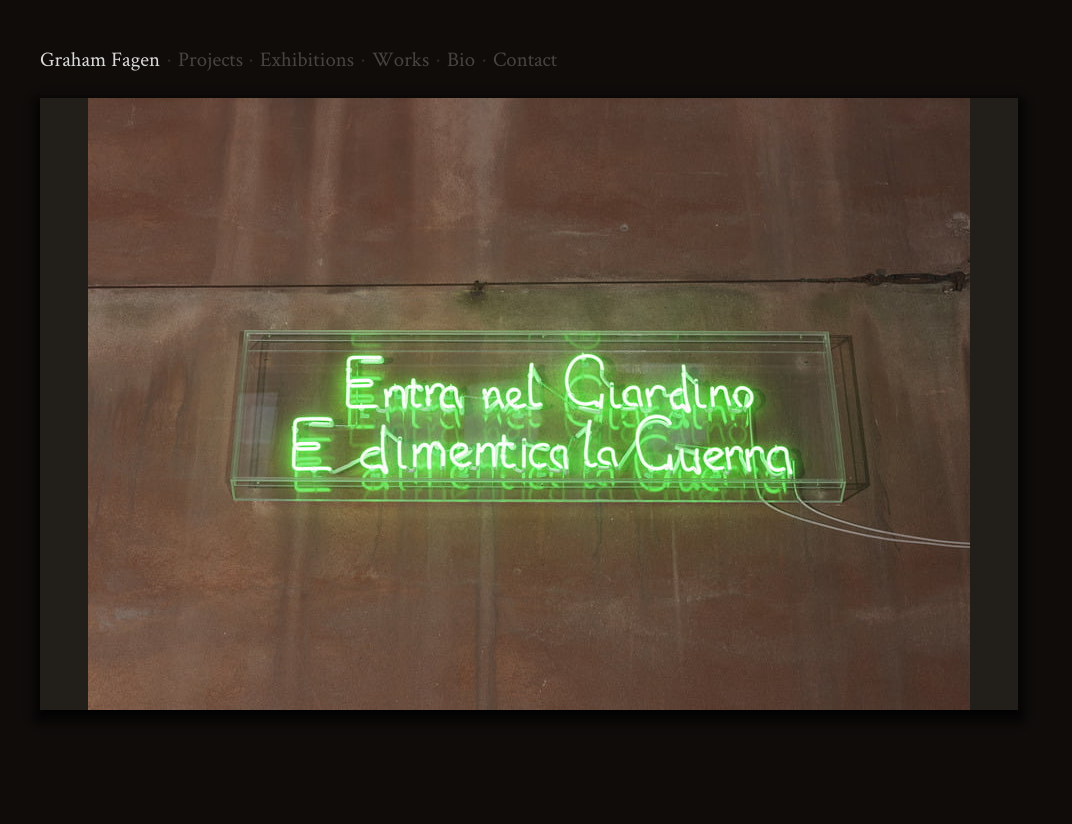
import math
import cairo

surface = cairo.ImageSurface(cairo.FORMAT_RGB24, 1072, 824)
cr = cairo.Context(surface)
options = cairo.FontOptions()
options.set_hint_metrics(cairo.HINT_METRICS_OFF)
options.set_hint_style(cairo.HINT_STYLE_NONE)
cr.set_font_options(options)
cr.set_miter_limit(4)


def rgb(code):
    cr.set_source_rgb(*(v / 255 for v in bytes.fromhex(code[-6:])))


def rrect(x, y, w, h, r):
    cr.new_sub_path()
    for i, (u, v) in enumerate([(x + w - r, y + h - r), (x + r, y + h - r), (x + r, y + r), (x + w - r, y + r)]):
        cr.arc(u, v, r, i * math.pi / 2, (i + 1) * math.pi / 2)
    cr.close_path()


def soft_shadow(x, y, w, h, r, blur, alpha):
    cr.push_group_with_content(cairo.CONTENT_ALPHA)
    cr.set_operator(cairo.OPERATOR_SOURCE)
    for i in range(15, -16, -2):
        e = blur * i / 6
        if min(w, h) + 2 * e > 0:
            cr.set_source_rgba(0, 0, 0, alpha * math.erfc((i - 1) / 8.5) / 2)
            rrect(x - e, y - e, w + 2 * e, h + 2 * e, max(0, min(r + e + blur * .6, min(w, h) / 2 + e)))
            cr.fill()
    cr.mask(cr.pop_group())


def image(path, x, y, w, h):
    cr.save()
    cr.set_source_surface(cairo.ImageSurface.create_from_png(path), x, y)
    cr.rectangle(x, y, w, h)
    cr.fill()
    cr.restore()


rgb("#0f0c0a")
cr.paint()
rgb("#000000")
soft_shadow(37, 101, 984, 618, 0, 8, 1)
rgb("#221e19")
cr.rectangle(40, 98, 978, 612)
cr.fill()
image("img/1.png", 88, 98, 882, 612)
cr.select_font_face("Crimson Text")
cr.set_font_size(20.75)
rgb("#dadad9")
cr.move_to(40, 66)
cr.show_text("Graham Fagen")
rgb("#2f2b26")
cr.move_to(167, 66)
cr.show_text("·")
rgb("#474440")
cr.move_to(178, 66)
cr.show_text("Projects")
rgb("#2f2b26")
cr.move_to(249, 66)
cr.show_text("·")
rgb("#474440")
cr.move_to(260, 66)
cr.show_text("Exhibitions")
rgb("#2f2b26")
cr.move_to(361, 66)
cr.show_text("·")
rgb("#474440")
cr.move_to(372, 66)
cr.show_text("Works")
rgb("#2f2b26")
cr.move_to(436, 66)
cr.show_text("·")
rgb("#474440")
cr.move_to(447, 66)
cr.show_text("Bio")
rgb("#2f2b26")
cr.move_to(482, 66)
cr.show_text("·")
rgb("#474440")
cr.move_to(493, 66)
cr.show_text("Contact")
surface.write_to_png("page.png")
